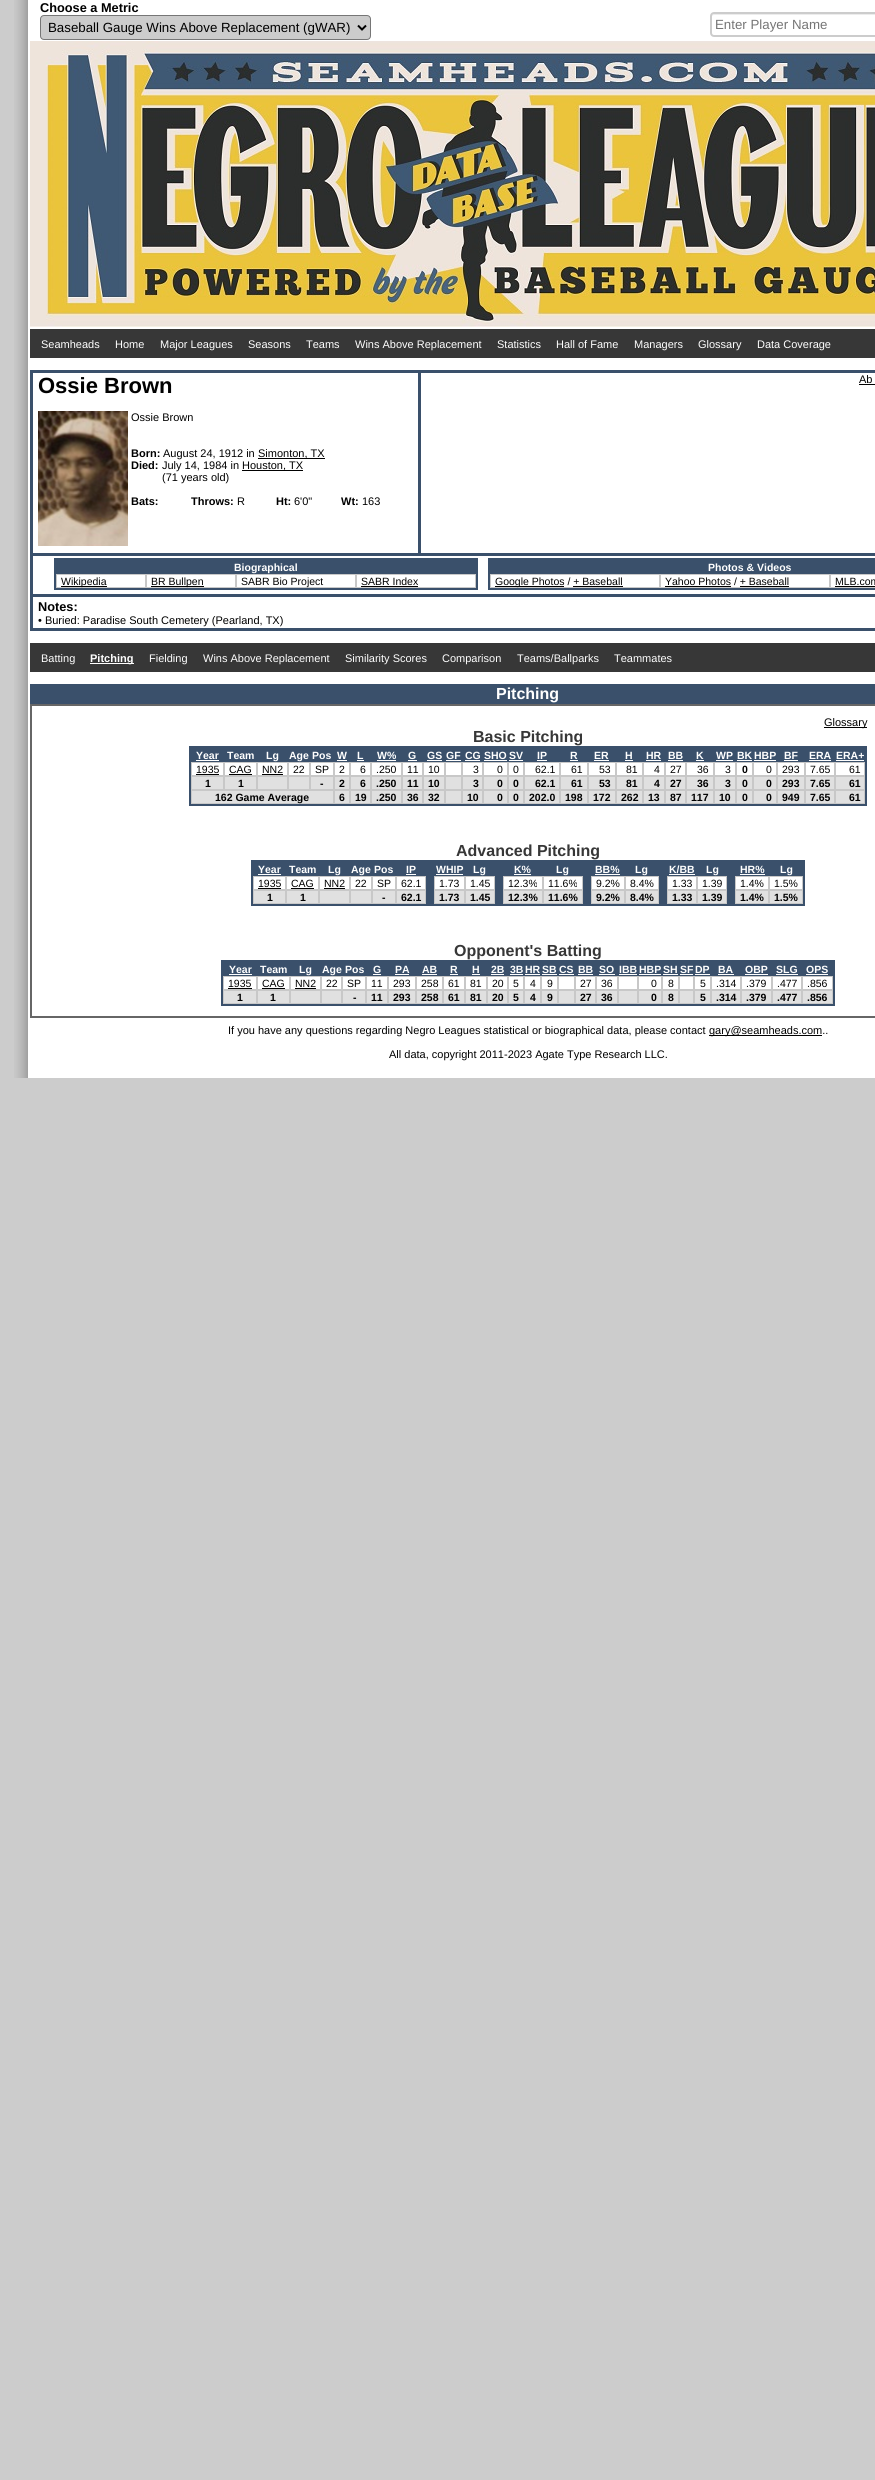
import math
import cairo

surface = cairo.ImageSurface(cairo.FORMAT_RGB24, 875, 2480)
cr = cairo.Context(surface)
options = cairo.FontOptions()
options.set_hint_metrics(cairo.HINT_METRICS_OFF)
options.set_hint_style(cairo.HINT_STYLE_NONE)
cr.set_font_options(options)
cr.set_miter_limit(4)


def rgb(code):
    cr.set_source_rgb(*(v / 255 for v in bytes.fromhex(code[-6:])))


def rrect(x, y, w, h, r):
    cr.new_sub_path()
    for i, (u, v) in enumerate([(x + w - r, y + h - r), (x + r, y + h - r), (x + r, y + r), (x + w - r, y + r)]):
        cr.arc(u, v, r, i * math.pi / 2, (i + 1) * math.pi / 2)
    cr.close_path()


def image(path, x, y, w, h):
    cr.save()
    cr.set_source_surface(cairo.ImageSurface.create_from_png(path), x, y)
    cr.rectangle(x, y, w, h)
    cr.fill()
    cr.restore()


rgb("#cccccc")
cr.paint()
image("img/1.png", 14, 0, 861, 370)
rgb("#cccccc")
rrect(40.5, 15.5, 330, 24, 3.5)
cr.fill_preserve()
rgb("#767676")
cr.set_line_width(1)
cr.stroke()
cr.new_path()
cr.move_to(358, 25.5)
cr.line_to(362, 29.5)
cr.line_to(366, 25.5)
rgb("#000000")
cr.set_line_width(2)
cr.stroke()
rgb("#ececec")
cr.set_fill_rule(cairo.FILL_RULE_EVEN_ODD)
cr.new_path()
cr.move_to(714, 15)
cr.line_to(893, 15)
cr.line_to(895, 16)
cr.curve_to(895, 15, 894, 14, 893, 14)
cr.line_to(714, 14)
cr.curve_to(713, 14, 712, 15, 712, 16)
cr.curve_to(712, 16, 713, 15, 714, 15)
cr.close_path()
cr.move_to(712, 34)
cr.line_to(712, 32)
cr.close_path()
cr.fill()
rrect(711, 13, 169, 23, 3)
rgb("#cccccc")
cr.stroke()
image("img/2.png", 30, 41, 845, 286)
rgb("#373737")
cr.rectangle(30, 329, 845, 29)
cr.fill()
image("img/3.png", 14, 370, 861, 648)
cr.rectangle(31.5, 371.5, 388, 183)
rgb("#3a506b")
cr.set_line_width(3)
cr.stroke()
image("img/4.png", 38, 411, 90, 135)
for x, y, w, h, color in [
    (258, 458, 67, 1, "#000000"),
    (242, 470, 61, 1, "#000000"),
    (421, 370, 454, 3, "#3a506b"),
    (421, 553, 454, 3, "#3a506b"),
    (859, 384, 16, 1, "#000000"),
    (30, 594, 845, 3, "#3a506b"),
    (30, 556, 3, 41, "#3a506b"),
]:
    rgb(color)
    cr.rectangle(x, y, w, h)
    cr.fill()
cr.rectangle(55, 559, 422, 30)
cr.set_line_width(2)
cr.stroke()
cr.rectangle(56, 560, 420, 14)
cr.fill()
cr.rectangle(56.5, 574.5, 89, 13)
rgb("#c8c8c8")
cr.set_line_width(1)
cr.stroke()
rgb("#000000")
cr.rectangle(61, 586, 46, 1)
cr.fill()
cr.rectangle(146.5, 574.5, 89, 13)
rgb("#c8c8c8")
cr.stroke()
rgb("#000000")
cr.rectangle(151, 586, 53, 1)
cr.fill()
cr.rectangle(236.5, 574.5, 119, 13)
rgb("#c8c8c8")
cr.stroke()
cr.rectangle(356.5, 574.5, 119, 13)
cr.stroke()
rgb("#000000")
cr.rectangle(361, 586, 57, 1)
cr.fill()
cr.rectangle(489, 559, 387, 30)
rgb("#3a506b")
cr.set_line_width(2)
cr.stroke()
cr.rectangle(490, 560, 385, 14)
cr.fill()
cr.rectangle(490.5, 574.5, 169, 13)
rgb("#c8c8c8")
cr.set_line_width(1)
cr.stroke()
rgb("#000000")
cr.rectangle(495, 586, 69, 1)
cr.fill()
cr.rectangle(573, 586, 50, 1)
cr.fill()
cr.rectangle(660.5, 574.5, 169, 13)
rgb("#c8c8c8")
cr.stroke()
rgb("#000000")
cr.rectangle(665, 586, 66, 1)
cr.fill()
cr.rectangle(740, 586, 49, 1)
cr.fill()
cr.rectangle(830.5, 574.5, 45, 13)
rgb("#c8c8c8")
cr.stroke()
for x, y, w, h, color in [
    (835, 586, 40, 1, "#000000"),
    (30, 628, 845, 3, "#3a506b"),
    (30, 597, 3, 34, "#3a506b"),
    (30, 643, 845, 29, "#373737"),
    (90, 663, 44, 1, "#ffffff"),
    (30, 684, 845, 20, "#3a506b"),
]:
    rgb(color)
    cr.rectangle(x, y, w, h)
    cr.fill()
cr.rectangle(31, 705, 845, 312)
rgb("#666666")
cr.set_line_width(2)
cr.stroke()
rgb("#000000")
cr.rectangle(824, 727, 43, 1)
cr.fill()
cr.rectangle(190, 747, 676, 58)
rgb("#3a506b")
cr.stroke()
for x, y, w, h, color in [
    (191, 748, 674, 14, "#3a506b"),
    (196, 760, 23, 1, "#ffffff"),
    (337, 760, 10, 1, "#ffffff"),
    (357, 760, 7, 1, "#ffffff"),
    (377, 760, 19, 1, "#ffffff"),
    (408, 760, 9, 1, "#ffffff"),
    (427, 760, 15, 1, "#ffffff"),
    (446, 760, 15, 1, "#ffffff"),
    (465, 760, 15, 1, "#ffffff"),
    (484, 760, 23, 1, "#ffffff"),
    (509, 760, 14, 1, "#ffffff"),
    (537, 760, 10, 1, "#ffffff"),
    (570, 760, 8, 1, "#ffffff"),
    (594, 760, 15, 1, "#ffffff"),
    (625, 760, 8, 1, "#ffffff"),
    (646, 760, 15, 1, "#ffffff"),
    (668, 760, 15, 1, "#ffffff"),
    (696, 760, 8, 1, "#ffffff"),
    (716, 760, 17, 1, "#ffffff"),
    (737, 760, 15, 1, "#ffffff"),
    (754, 760, 22, 1, "#ffffff"),
    (784, 760, 14, 1, "#ffffff"),
    (809, 760, 22, 1, "#ffffff"),
    (836, 760, 28, 1, "#ffffff"),
]:
    rgb(color)
    cr.rectangle(x, y, w, h)
    cr.fill()
cr.rectangle(191.5, 762.5, 32, 13)
rgb("#c8c8c8")
cr.set_line_width(1)
cr.stroke()
rgb("#000000")
cr.rectangle(196, 774, 23, 1)
cr.fill()
cr.rectangle(224.5, 762.5, 32, 13)
rgb("#c8c8c8")
cr.stroke()
rgb("#000000")
cr.rectangle(229, 774, 23, 1)
cr.fill()
cr.rectangle(257.5, 762.5, 30, 13)
rgb("#c8c8c8")
cr.stroke()
rgb("#000000")
cr.rectangle(262, 774, 21, 1)
cr.fill()
cr.rectangle(288.5, 762.5, 21, 13)
rgb("#c8c8c8")
cr.stroke()
cr.rectangle(310.5, 762.5, 23, 13)
cr.stroke()
cr.rectangle(334.5, 762.5, 15, 13)
cr.stroke()
cr.rectangle(350.5, 762.5, 20, 13)
cr.stroke()
cr.rectangle(371.5, 762.5, 30, 13)
cr.stroke()
cr.rectangle(402.5, 762.5, 20, 13)
cr.stroke()
cr.rectangle(423.5, 762.5, 21, 13)
cr.stroke()
cr.rectangle(445.5, 762.5, 16, 13)
cr.stroke()
cr.rectangle(462.5, 762.5, 20, 13)
cr.stroke()
cr.rectangle(483.5, 762.5, 24, 13)
cr.stroke()
cr.rectangle(508.5, 762.5, 15, 13)
cr.stroke()
cr.rectangle(524.5, 762.5, 35, 13)
cr.stroke()
cr.rectangle(560.5, 762.5, 27, 13)
cr.stroke()
cr.rectangle(588.5, 762.5, 27, 13)
cr.stroke()
cr.rectangle(616.5, 762.5, 26, 13)
cr.stroke()
cr.rectangle(643.5, 762.5, 21, 13)
cr.stroke()
cr.rectangle(665.5, 762.5, 20, 13)
cr.stroke()
cr.rectangle(686.5, 762.5, 27, 13)
cr.stroke()
cr.rectangle(714.5, 762.5, 21, 13)
cr.stroke()
cr.rectangle(736.5, 762.5, 16, 13)
cr.stroke()
cr.rectangle(753.5, 762.5, 23, 13)
cr.stroke()
cr.rectangle(777.5, 762.5, 27, 13)
cr.stroke()
cr.rectangle(805.5, 762.5, 29, 13)
cr.stroke()
cr.rectangle(835.5, 762.5, 29, 13)
cr.stroke()
rgb("#e0e0e0")
cr.rectangle(192, 777, 672, 26)
cr.fill()
cr.rectangle(191.5, 776.5, 32, 13)
rgb("#c8c8c8")
cr.stroke()
cr.rectangle(224.5, 776.5, 32, 13)
cr.stroke()
cr.rectangle(257.5, 776.5, 30, 13)
cr.stroke()
cr.rectangle(288.5, 776.5, 21, 13)
cr.stroke()
cr.rectangle(310.5, 776.5, 23, 13)
cr.stroke()
cr.rectangle(334.5, 776.5, 15, 13)
cr.stroke()
cr.rectangle(350.5, 776.5, 20, 13)
cr.stroke()
cr.rectangle(371.5, 776.5, 30, 13)
cr.stroke()
cr.rectangle(402.5, 776.5, 20, 13)
cr.stroke()
cr.rectangle(423.5, 776.5, 21, 13)
cr.stroke()
cr.rectangle(445.5, 776.5, 16, 13)
cr.stroke()
cr.rectangle(462.5, 776.5, 20, 13)
cr.stroke()
cr.rectangle(483.5, 776.5, 24, 13)
cr.stroke()
cr.rectangle(508.5, 776.5, 15, 13)
cr.stroke()
cr.rectangle(524.5, 776.5, 35, 13)
cr.stroke()
cr.rectangle(560.5, 776.5, 27, 13)
cr.stroke()
cr.rectangle(588.5, 776.5, 27, 13)
cr.stroke()
cr.rectangle(616.5, 776.5, 26, 13)
cr.stroke()
cr.rectangle(643.5, 776.5, 21, 13)
cr.stroke()
cr.rectangle(665.5, 776.5, 20, 13)
cr.stroke()
cr.rectangle(686.5, 776.5, 27, 13)
cr.stroke()
cr.rectangle(714.5, 776.5, 21, 13)
cr.stroke()
cr.rectangle(736.5, 776.5, 16, 13)
cr.stroke()
cr.rectangle(753.5, 776.5, 23, 13)
cr.stroke()
cr.rectangle(777.5, 776.5, 27, 13)
cr.stroke()
cr.rectangle(805.5, 776.5, 29, 13)
cr.stroke()
cr.rectangle(835.5, 776.5, 29, 13)
cr.stroke()
cr.rectangle(191.5, 790.5, 142, 13)
cr.stroke()
cr.rectangle(334.5, 790.5, 15, 13)
cr.stroke()
cr.rectangle(350.5, 790.5, 20, 13)
cr.stroke()
cr.rectangle(371.5, 790.5, 30, 13)
cr.stroke()
cr.rectangle(402.5, 790.5, 20, 13)
cr.stroke()
cr.rectangle(423.5, 790.5, 21, 13)
cr.stroke()
cr.rectangle(445.5, 790.5, 16, 13)
cr.stroke()
cr.rectangle(462.5, 790.5, 20, 13)
cr.stroke()
cr.rectangle(483.5, 790.5, 24, 13)
cr.stroke()
cr.rectangle(508.5, 790.5, 15, 13)
cr.stroke()
cr.rectangle(524.5, 790.5, 35, 13)
cr.stroke()
cr.rectangle(560.5, 790.5, 27, 13)
cr.stroke()
cr.rectangle(588.5, 790.5, 27, 13)
cr.stroke()
cr.rectangle(616.5, 790.5, 26, 13)
cr.stroke()
cr.rectangle(643.5, 790.5, 21, 13)
cr.stroke()
cr.rectangle(665.5, 790.5, 20, 13)
cr.stroke()
cr.rectangle(686.5, 790.5, 27, 13)
cr.stroke()
cr.rectangle(714.5, 790.5, 21, 13)
cr.stroke()
cr.rectangle(736.5, 790.5, 16, 13)
cr.stroke()
cr.rectangle(753.5, 790.5, 23, 13)
cr.stroke()
cr.rectangle(777.5, 790.5, 27, 13)
cr.stroke()
cr.rectangle(805.5, 790.5, 29, 13)
cr.stroke()
cr.rectangle(835.5, 790.5, 29, 13)
cr.stroke()
cr.rectangle(252, 861, 552, 44)
rgb("#3a506b")
cr.set_line_width(2)
cr.stroke()
for x, y, w, h, color in [
    (253, 862, 550, 14, "#3a506b"),
    (258, 874, 23, 1, "#ffffff"),
    (406, 874, 10, 1, "#ffffff"),
    (436, 874, 27, 1, "#ffffff"),
    (514, 874, 17, 1, "#ffffff"),
    (595, 874, 25, 1, "#ffffff"),
    (669, 874, 26, 1, "#ffffff"),
    (740, 874, 25, 1, "#ffffff"),
]:
    rgb(color)
    cr.rectangle(x, y, w, h)
    cr.fill()
cr.rectangle(253.5, 876.5, 32, 13)
rgb("#c8c8c8")
cr.set_line_width(1)
cr.stroke()
rgb("#000000")
cr.rectangle(258, 888, 23, 1)
cr.fill()
cr.rectangle(286.5, 876.5, 32, 13)
rgb("#c8c8c8")
cr.stroke()
rgb("#000000")
cr.rectangle(291, 888, 23, 1)
cr.fill()
cr.rectangle(319.5, 876.5, 30, 13)
rgb("#c8c8c8")
cr.stroke()
rgb("#000000")
cr.rectangle(324, 888, 21, 1)
cr.fill()
cr.rectangle(350.5, 876.5, 21, 13)
rgb("#c8c8c8")
cr.stroke()
cr.rectangle(372.5, 876.5, 23, 13)
cr.stroke()
cr.rectangle(396.5, 876.5, 29, 13)
cr.stroke()
rgb("#3a506b")
cr.rectangle(426, 876, 8, 14)
cr.fill()
cr.rectangle(434.5, 876.5, 30, 13)
rgb("#c8c8c8")
cr.stroke()
cr.rectangle(465.5, 876.5, 29, 13)
cr.stroke()
rgb("#3a506b")
cr.rectangle(495, 876, 8, 14)
cr.fill()
cr.rectangle(503.5, 876.5, 39, 13)
rgb("#c8c8c8")
cr.stroke()
cr.rectangle(543.5, 876.5, 39, 13)
cr.stroke()
rgb("#3a506b")
cr.rectangle(583, 876, 8, 14)
cr.fill()
cr.rectangle(591.5, 876.5, 33, 13)
rgb("#c8c8c8")
cr.stroke()
cr.rectangle(625.5, 876.5, 33, 13)
cr.stroke()
rgb("#3a506b")
cr.rectangle(659, 876, 8, 14)
cr.fill()
cr.rectangle(667.5, 876.5, 29, 13)
rgb("#c8c8c8")
cr.stroke()
cr.rectangle(697.5, 876.5, 29, 13)
cr.stroke()
rgb("#3a506b")
cr.rectangle(727, 876, 8, 14)
cr.fill()
cr.rectangle(735.5, 876.5, 33, 13)
rgb("#c8c8c8")
cr.stroke()
cr.rectangle(769.5, 876.5, 33, 13)
cr.stroke()
rgb("#e0e0e0")
cr.rectangle(254, 891, 548, 12)
cr.fill()
cr.rectangle(253.5, 890.5, 32, 13)
rgb("#c8c8c8")
cr.stroke()
cr.rectangle(286.5, 890.5, 32, 13)
cr.stroke()
cr.rectangle(319.5, 890.5, 30, 13)
cr.stroke()
cr.rectangle(350.5, 890.5, 21, 13)
cr.stroke()
cr.rectangle(372.5, 890.5, 23, 13)
cr.stroke()
cr.rectangle(396.5, 890.5, 29, 13)
cr.stroke()
rgb("#3a506b")
cr.rectangle(426, 890, 8, 14)
cr.fill()
cr.rectangle(434.5, 890.5, 30, 13)
rgb("#c8c8c8")
cr.stroke()
cr.rectangle(465.5, 890.5, 29, 13)
cr.stroke()
rgb("#3a506b")
cr.rectangle(495, 890, 8, 14)
cr.fill()
cr.rectangle(503.5, 890.5, 39, 13)
rgb("#c8c8c8")
cr.stroke()
cr.rectangle(543.5, 890.5, 39, 13)
cr.stroke()
rgb("#3a506b")
cr.rectangle(583, 890, 8, 14)
cr.fill()
cr.rectangle(591.5, 890.5, 33, 13)
rgb("#c8c8c8")
cr.stroke()
cr.rectangle(625.5, 890.5, 33, 13)
cr.stroke()
rgb("#3a506b")
cr.rectangle(659, 890, 8, 14)
cr.fill()
cr.rectangle(667.5, 890.5, 29, 13)
rgb("#c8c8c8")
cr.stroke()
cr.rectangle(697.5, 890.5, 29, 13)
cr.stroke()
rgb("#3a506b")
cr.rectangle(727, 890, 8, 14)
cr.fill()
cr.rectangle(735.5, 890.5, 33, 13)
rgb("#c8c8c8")
cr.stroke()
cr.rectangle(769.5, 890.5, 33, 13)
cr.stroke()
cr.rectangle(222, 961, 612, 44)
rgb("#3a506b")
cr.set_line_width(2)
cr.stroke()
for x, y, w, h, color in [
    (223, 962, 610, 14, "#3a506b"),
    (229, 974, 23, 1, "#ffffff"),
    (373, 974, 8, 1, "#ffffff"),
    (395, 974, 14, 1, "#ffffff"),
    (422, 974, 15, 1, "#ffffff"),
    (450, 974, 8, 1, "#ffffff"),
    (472, 974, 8, 1, "#ffffff"),
    (491, 974, 13, 1, "#ffffff"),
    (510, 974, 13, 1, "#ffffff"),
    (525, 974, 15, 1, "#ffffff"),
    (542, 974, 15, 1, "#ffffff"),
    (559, 974, 15, 1, "#ffffff"),
    (578, 974, 15, 1, "#ffffff"),
    (599, 974, 16, 1, "#ffffff"),
    (619, 974, 18, 1, "#ffffff"),
    (639, 974, 22, 1, "#ffffff"),
    (663, 974, 15, 1, "#ffffff"),
    (680, 974, 13, 1, "#ffffff"),
    (695, 974, 15, 1, "#ffffff"),
    (718, 974, 16, 1, "#ffffff"),
    (745, 974, 23, 1, "#ffffff"),
    (776, 974, 22, 1, "#ffffff"),
    (806, 974, 22, 1, "#ffffff"),
]:
    rgb(color)
    cr.rectangle(x, y, w, h)
    cr.fill()
cr.rectangle(223.5, 976.5, 33, 13)
rgb("#c8c8c8")
cr.set_line_width(1)
cr.stroke()
rgb("#000000")
cr.rectangle(228, 988, 24, 1)
cr.fill()
cr.rectangle(257.5, 976.5, 32, 13)
rgb("#c8c8c8")
cr.stroke()
rgb("#000000")
cr.rectangle(262, 988, 23, 1)
cr.fill()
cr.rectangle(290.5, 976.5, 30, 13)
rgb("#c8c8c8")
cr.stroke()
rgb("#000000")
cr.rectangle(295, 988, 21, 1)
cr.fill()
cr.rectangle(321.5, 976.5, 20, 13)
rgb("#c8c8c8")
cr.stroke()
cr.rectangle(342.5, 976.5, 23, 13)
cr.stroke()
cr.rectangle(366.5, 976.5, 21, 13)
cr.stroke()
cr.rectangle(388.5, 976.5, 27, 13)
cr.stroke()
cr.rectangle(416.5, 976.5, 26, 13)
cr.stroke()
cr.rectangle(443.5, 976.5, 21, 13)
cr.stroke()
cr.rectangle(465.5, 976.5, 21, 13)
cr.stroke()
cr.rectangle(487.5, 976.5, 20, 13)
cr.stroke()
cr.rectangle(508.5, 976.5, 15, 13)
cr.stroke()
cr.rectangle(524.5, 976.5, 16, 13)
cr.stroke()
cr.rectangle(541.5, 976.5, 16, 13)
cr.stroke()
cr.rectangle(558.5, 976.5, 16, 13)
cr.stroke()
cr.rectangle(575.5, 976.5, 20, 13)
cr.stroke()
cr.rectangle(596.5, 976.5, 21, 13)
cr.stroke()
cr.rectangle(618.5, 976.5, 19, 13)
cr.stroke()
cr.rectangle(638.5, 976.5, 23, 13)
cr.stroke()
cr.rectangle(662.5, 976.5, 16, 13)
cr.stroke()
cr.rectangle(679.5, 976.5, 14, 13)
cr.stroke()
cr.rectangle(694.5, 976.5, 16, 13)
cr.stroke()
cr.rectangle(711.5, 976.5, 29, 13)
cr.stroke()
cr.rectangle(741.5, 976.5, 30, 13)
cr.stroke()
cr.rectangle(772.5, 976.5, 29, 13)
cr.stroke()
cr.rectangle(802.5, 976.5, 30, 13)
cr.stroke()
rgb("#e0e0e0")
cr.rectangle(224, 991, 608, 12)
cr.fill()
cr.rectangle(223.5, 990.5, 33, 13)
rgb("#c8c8c8")
cr.stroke()
cr.rectangle(257.5, 990.5, 32, 13)
cr.stroke()
cr.rectangle(290.5, 990.5, 30, 13)
cr.stroke()
cr.rectangle(321.5, 990.5, 20, 13)
cr.stroke()
cr.rectangle(342.5, 990.5, 23, 13)
cr.stroke()
cr.rectangle(366.5, 990.5, 21, 13)
cr.stroke()
cr.rectangle(388.5, 990.5, 27, 13)
cr.stroke()
cr.rectangle(416.5, 990.5, 26, 13)
cr.stroke()
cr.rectangle(443.5, 990.5, 21, 13)
cr.stroke()
cr.rectangle(465.5, 990.5, 21, 13)
cr.stroke()
cr.rectangle(487.5, 990.5, 20, 13)
cr.stroke()
cr.rectangle(508.5, 990.5, 15, 13)
cr.stroke()
cr.rectangle(524.5, 990.5, 16, 13)
cr.stroke()
cr.rectangle(541.5, 990.5, 16, 13)
cr.stroke()
cr.rectangle(558.5, 990.5, 16, 13)
cr.stroke()
cr.rectangle(575.5, 990.5, 20, 13)
cr.stroke()
cr.rectangle(596.5, 990.5, 21, 13)
cr.stroke()
cr.rectangle(618.5, 990.5, 19, 13)
cr.stroke()
cr.rectangle(638.5, 990.5, 23, 13)
cr.stroke()
cr.rectangle(662.5, 990.5, 16, 13)
cr.stroke()
cr.rectangle(679.5, 990.5, 14, 13)
cr.stroke()
cr.rectangle(694.5, 990.5, 16, 13)
cr.stroke()
cr.rectangle(711.5, 990.5, 29, 13)
cr.stroke()
cr.rectangle(741.5, 990.5, 30, 13)
cr.stroke()
cr.rectangle(772.5, 990.5, 29, 13)
cr.stroke()
cr.rectangle(802.5, 990.5, 30, 13)
cr.stroke()
image("img/5.png", 14, 1018, 861, 60)
rgb("#000000")
cr.rectangle(709, 1035, 113, 1)
cr.fill()
cr.select_font_face("Liberation Sans", cairo.FONT_SLANT_NORMAL, cairo.FONT_WEIGHT_BOLD)
cr.set_font_size(12.75)
cr.move_to(40, 12)
cr.show_text("Choose a Metric")
cr.select_font_face("Liberation Sans")
cr.set_font_size(13.3)
cr.move_to(48, 32)
cr.show_text("Baseball Gauge Wins Above Replacement (gWAR)")
rgb("#757575")
cr.move_to(715, 29)
cr.show_text("Enter Player Name")
cr.set_font_size(11)
rgb("#ffffff")
for x, y, s in [
    (41, 348, "Seamheads"),
    (115, 348, "Home"),
    (160, 348, "Major Leagues"),
    (248, 348, "Seasons"),
    (306, 348, "Teams"),
    (355, 348, "Wins Above Replacement"),
    (497, 348, "Statistics"),
    (556, 348, "Hall of Fame"),
    (634, 348, "Managers"),
    (698, 348, "Glossary"),
    (757, 348, "Data Coverage"),
]:
    cr.move_to(x, y)
    cr.show_text(s)
cr.select_font_face("Liberation Sans", cairo.FONT_SLANT_NORMAL, cairo.FONT_WEIGHT_BOLD)
cr.set_font_size(22)
rgb("#000000")
cr.move_to(38, 393)
cr.show_text("Ossie Brown")
cr.select_font_face("Liberation Sans")
cr.set_font_size(11)
cr.move_to(131, 421)
cr.show_text("Ossie Brown")
cr.select_font_face("Liberation Sans", cairo.FONT_SLANT_NORMAL, cairo.FONT_WEIGHT_BOLD)
cr.move_to(131, 457)
cr.show_text("Born:")
cr.select_font_face("Liberation Sans")
cr.move_to(163, 457)
cr.show_text("August 24, 1912 in")
cr.move_to(258, 457)
cr.show_text("Simonton, TX")
cr.select_font_face("Liberation Sans", cairo.FONT_SLANT_NORMAL, cairo.FONT_WEIGHT_BOLD)
cr.move_to(131, 469)
cr.show_text("Died:")
cr.select_font_face("Liberation Sans")
for x, y, s in [
    (162, 469, "July 14, 1984 in"),
    (242, 469, "Houston, TX"),
    (162, 481, "(71 years old)"),
]:
    cr.move_to(x, y)
    cr.show_text(s)
cr.select_font_face("Liberation Sans", cairo.FONT_SLANT_NORMAL, cairo.FONT_WEIGHT_BOLD)
cr.move_to(131, 505)
cr.show_text("Bats:")
cr.move_to(191, 505)
cr.show_text("Throws:")
cr.select_font_face("Liberation Sans")
cr.move_to(237, 505)
cr.show_text("R")
cr.select_font_face("Liberation Sans", cairo.FONT_SLANT_NORMAL, cairo.FONT_WEIGHT_BOLD)
cr.move_to(276, 505)
cr.show_text("Ht:")
cr.select_font_face("Liberation Sans")
cr.move_to(294, 505)
cr.show_text("6'0\"")
cr.select_font_face("Liberation Sans", cairo.FONT_SLANT_NORMAL, cairo.FONT_WEIGHT_BOLD)
cr.move_to(341, 505)
cr.show_text("Wt:")
cr.select_font_face("Liberation Sans")
cr.move_to(362, 505)
cr.show_text("163")
cr.move_to(859, 383)
cr.show_text("Ab")
cr.select_font_face("Liberation Sans", cairo.FONT_SLANT_NORMAL, cairo.FONT_WEIGHT_BOLD)
cr.set_font_size(10.5)
rgb("#ffffff")
cr.move_to(234, 571)
cr.show_text("Biographical")
cr.select_font_face("Liberation Sans")
rgb("#000000")
for x, y, s in [
    (61, 585, "Wikipedia"),
    (151, 585, "BR Bullpen"),
    (241, 585, "SABR Bio Project"),
    (361, 585, "SABR Index"),
]:
    cr.move_to(x, y)
    cr.show_text(s)
cr.select_font_face("Liberation Sans", cairo.FONT_SLANT_NORMAL, cairo.FONT_WEIGHT_BOLD)
rgb("#ffffff")
cr.move_to(708, 571)
cr.show_text("Photos & Videos")
cr.select_font_face("Liberation Sans")
rgb("#000000")
for x, y, s in [
    (495, 585, "Google Photos / + Baseball"),
    (665, 585, "Yahoo Photos / + Baseball"),
    (835, 585, "MLB.com"),
]:
    cr.move_to(x, y)
    cr.show_text(s)
cr.select_font_face("Liberation Sans", cairo.FONT_SLANT_NORMAL, cairo.FONT_WEIGHT_BOLD)
cr.set_font_size(12.75)
cr.move_to(38, 611)
cr.show_text("Notes:")
cr.select_font_face("Liberation Sans")
cr.set_font_size(11)
cr.move_to(38, 624)
cr.show_text("• Buried: Paradise South Cemetery (Pearland, TX)")
rgb("#ffffff")
cr.move_to(41, 662)
cr.show_text("Batting")
cr.select_font_face("Liberation Sans", cairo.FONT_SLANT_NORMAL, cairo.FONT_WEIGHT_BOLD)
cr.move_to(90, 662)
cr.show_text("Pitching")
cr.select_font_face("Liberation Sans")
for x, y, s in [
    (149, 662, "Fielding"),
    (203, 662, "Wins Above Replacement"),
    (345, 662, "Similarity Scores"),
    (442, 662, "Comparison"),
    (517, 662, "Teams/Ballparks"),
    (614, 662, "Teammates"),
]:
    cr.move_to(x, y)
    cr.show_text(s)
cr.select_font_face("Liberation Sans", cairo.FONT_SLANT_NORMAL, cairo.FONT_WEIGHT_BOLD)
cr.set_font_size(16)
cr.move_to(496, 699)
cr.show_text("Pitching")
cr.select_font_face("Liberation Sans")
cr.set_font_size(11)
rgb("#000000")
cr.move_to(824, 726)
cr.show_text("Glossary")
cr.select_font_face("Liberation Sans", cairo.FONT_SLANT_NORMAL, cairo.FONT_WEIGHT_BOLD)
cr.set_font_size(16)
rgb("#373737")
cr.move_to(473, 742)
cr.show_text("Basic Pitching")
cr.set_font_size(10.5)
rgb("#ffffff")
for x, y, s in [
    (196, 759, "Year"),
    (227, 759, "Team"),
    (266, 759, "Lg"),
    (289, 759, "Age"),
    (312, 759, "Pos"),
    (337, 759, "W"),
    (357, 759, "L"),
    (377, 759, "W%"),
    (408, 759, "G"),
    (427, 759, "GS"),
    (446, 759, "GF"),
    (465, 759, "CG"),
    (484, 759, "SHO"),
    (509, 759, "SV"),
    (537, 759, "IP"),
    (570, 759, "R"),
    (594, 759, "ER"),
    (625, 759, "H"),
    (646, 759, "HR"),
    (668, 759, "BB"),
    (696, 759, "K"),
    (716, 759, "WP"),
    (737, 759, "BK"),
    (754, 759, "HBP"),
    (784, 759, "BF"),
    (809, 759, "ERA"),
    (836, 759, "ERA+"),
]:
    cr.move_to(x, y)
    cr.show_text(s)
cr.select_font_face("Liberation Sans")
rgb("#000000")
for x, y, s in [
    (196, 773, "1935"),
    (229, 773, "CAG"),
    (262, 773, "NN2"),
    (293, 773, "22"),
    (315, 773, "SP"),
    (339, 773, "2"),
    (360, 773, "6"),
    (376, 773, ".250"),
    (407, 773, "11"),
    (428, 773, "10"),
    (473, 773, "3"),
    (497, 773, "0"),
    (513, 773, "0"),
    (535, 773, "62.1"),
    (571, 773, "61"),
    (599, 773, "53"),
    (626, 773, "81"),
    (654, 773, "4"),
    (670, 773, "27"),
    (697, 773, "36"),
    (725, 773, "3"),
]:
    cr.move_to(x, y)
    cr.show_text(s)
cr.select_font_face("Liberation Sans", cairo.FONT_SLANT_NORMAL, cairo.FONT_WEIGHT_BOLD)
cr.move_to(742, 773)
cr.show_text("0")
cr.select_font_face("Liberation Sans")
for x, y, s in [
    (766, 773, "0"),
    (782, 773, "293"),
    (810, 773, "7.65"),
    (849, 773, "61"),
]:
    cr.move_to(x, y)
    cr.show_text(s)
cr.select_font_face("Liberation Sans", cairo.FONT_SLANT_NORMAL, cairo.FONT_WEIGHT_BOLD)
for x, y, s in [
    (205, 787, "1"),
    (238, 787, "1"),
    (320, 787, "-"),
    (339, 787, "2"),
    (360, 787, "6"),
    (376, 787, ".250"),
    (407, 787, "11"),
    (428, 787, "10"),
    (473, 787, "3"),
    (497, 787, "0"),
    (513, 787, "0"),
    (535, 787, "62.1"),
    (571, 787, "61"),
    (599, 787, "53"),
    (626, 787, "81"),
    (654, 787, "4"),
    (670, 787, "27"),
    (697, 787, "36"),
    (725, 787, "3"),
    (742, 787, "0"),
    (766, 787, "0"),
    (782, 787, "293"),
    (810, 787, "7.65"),
    (849, 787, "61"),
    (215, 801, "162 Game Average"),
    (339, 801, "6"),
    (355, 801, "19"),
    (376, 801, ".250"),
    (407, 801, "36"),
    (428, 801, "32"),
    (467, 801, "10"),
    (497, 801, "0"),
    (513, 801, "0"),
    (529, 801, "202.0"),
    (565, 801, "198"),
    (593, 801, "172"),
    (621, 801, "262"),
    (648, 801, "13"),
    (670, 801, "87"),
    (691, 801, "117"),
    (719, 801, "10"),
    (742, 801, "0"),
    (766, 801, "0"),
    (782, 801, "949"),
    (810, 801, "7.65"),
    (849, 801, "61"),
]:
    cr.move_to(x, y)
    cr.show_text(s)
cr.set_font_size(16)
rgb("#373737")
cr.move_to(456, 856)
cr.show_text("Advanced Pitching")
cr.set_font_size(10.5)
rgb("#ffffff")
for x, y, s in [
    (258, 873, "Year"),
    (289, 873, "Team"),
    (328, 873, "Lg"),
    (351, 873, "Age"),
    (374, 873, "Pos"),
    (406, 873, "IP"),
    (436, 873, "WHIP"),
    (473, 873, "Lg"),
    (514, 873, "K%"),
    (556, 873, "Lg"),
    (595, 873, "BB%"),
    (635, 873, "Lg"),
    (669, 873, "K/BB"),
    (706, 873, "Lg"),
    (740, 873, "HR%"),
    (780, 873, "Lg"),
]:
    cr.move_to(x, y)
    cr.show_text(s)
cr.select_font_face("Liberation Sans")
rgb("#000000")
for x, y, s in [
    (258, 887, "1935"),
    (291, 887, "CAG"),
    (324, 887, "NN2"),
    (355, 887, "22"),
    (377, 887, "SP"),
    (401, 887, "62.1"),
    (439, 887, "1.73"),
    (470, 887, "1.45"),
    (508, 887, "12.3%"),
    (548, 887, "11.6%"),
    (596, 887, "9.2%"),
    (630, 887, "8.4%"),
    (672, 887, "1.33"),
    (702, 887, "1.39"),
    (740, 887, "1.4%"),
    (774, 887, "1.5%"),
]:
    cr.move_to(x, y)
    cr.show_text(s)
cr.select_font_face("Liberation Sans", cairo.FONT_SLANT_NORMAL, cairo.FONT_WEIGHT_BOLD)
for x, y, s in [
    (267, 901, "1"),
    (300, 901, "1"),
    (382, 901, "-"),
    (401, 901, "62.1"),
    (439, 901, "1.73"),
    (470, 901, "1.45"),
    (508, 901, "12.3%"),
    (548, 901, "11.6%"),
    (596, 901, "9.2%"),
    (630, 901, "8.4%"),
    (672, 901, "1.33"),
    (702, 901, "1.39"),
    (740, 901, "1.4%"),
    (774, 901, "1.5%"),
]:
    cr.move_to(x, y)
    cr.show_text(s)
cr.set_font_size(16)
rgb("#373737")
cr.move_to(454, 956)
cr.show_text("Opponent's Batting")
cr.set_font_size(10.5)
rgb("#ffffff")
for x, y, s in [
    (229, 973, "Year"),
    (260, 973, "Team"),
    (299, 973, "Lg"),
    (322, 973, "Age"),
    (345, 973, "Pos"),
    (373, 973, "G"),
    (395, 973, "PA"),
    (422, 973, "AB"),
    (450, 973, "R"),
    (472, 973, "H"),
    (491, 973, "2B"),
    (510, 973, "3B"),
    (525, 973, "HR"),
    (542, 973, "SB"),
    (559, 973, "CS"),
    (578, 973, "BB"),
    (599, 973, "SO"),
    (619, 973, "IBB"),
    (639, 973, "HBP"),
    (663, 973, "SH"),
    (680, 973, "SF"),
    (695, 973, "DP"),
    (718, 973, "BA"),
    (745, 973, "OBP"),
    (776, 973, "SLG"),
    (806, 973, "OPS"),
]:
    cr.move_to(x, y)
    cr.show_text(s)
cr.select_font_face("Liberation Sans")
rgb("#000000")
for x, y, s in [
    (228, 987, "1935"),
    (262, 987, "CAG"),
    (295, 987, "NN2"),
    (326, 987, "22"),
    (347, 987, "SP"),
    (371, 987, "11"),
    (393, 987, "293"),
    (421, 987, "258"),
    (448, 987, "61"),
    (470, 987, "81"),
    (492, 987, "20"),
    (513, 987, "5"),
    (530, 987, "4"),
    (547, 987, "9"),
    (580, 987, "27"),
    (601, 987, "36"),
    (651, 987, "0"),
    (668, 987, "8"),
    (700, 987, "5"),
    (716, 987, ".314"),
    (746, 987, ".379"),
    (777, 987, ".477"),
    (807, 987, ".856"),
]:
    cr.move_to(x, y)
    cr.show_text(s)
cr.select_font_face("Liberation Sans", cairo.FONT_SLANT_NORMAL, cairo.FONT_WEIGHT_BOLD)
for x, y, s in [
    (237, 1001, "1"),
    (270, 1001, "1"),
    (353, 1001, "-"),
    (371, 1001, "11"),
    (393, 1001, "293"),
    (421, 1001, "258"),
    (448, 1001, "61"),
    (470, 1001, "81"),
    (492, 1001, "20"),
    (513, 1001, "5"),
    (530, 1001, "4"),
    (547, 1001, "9"),
    (580, 1001, "27"),
    (601, 1001, "36"),
    (651, 1001, "0"),
    (668, 1001, "8"),
    (700, 1001, "5"),
    (716, 1001, ".314"),
    (746, 1001, ".379"),
    (777, 1001, ".477"),
    (807, 1001, ".856"),
]:
    cr.move_to(x, y)
    cr.show_text(s)
cr.select_font_face("Liberation Sans")
cr.set_font_size(11)
for x, y, s in [
    (228, 1034, "If you have any questions regarding Negro Leagues statistical or biographical data, please contact"),
    (709, 1034, "gary@seamheads.com.."),
    (389, 1058, "All data, copyright 2011-2023 Agate Type Research LLC."),
]:
    cr.move_to(x, y)
    cr.show_text(s)
surface.write_to_png("page.png")
